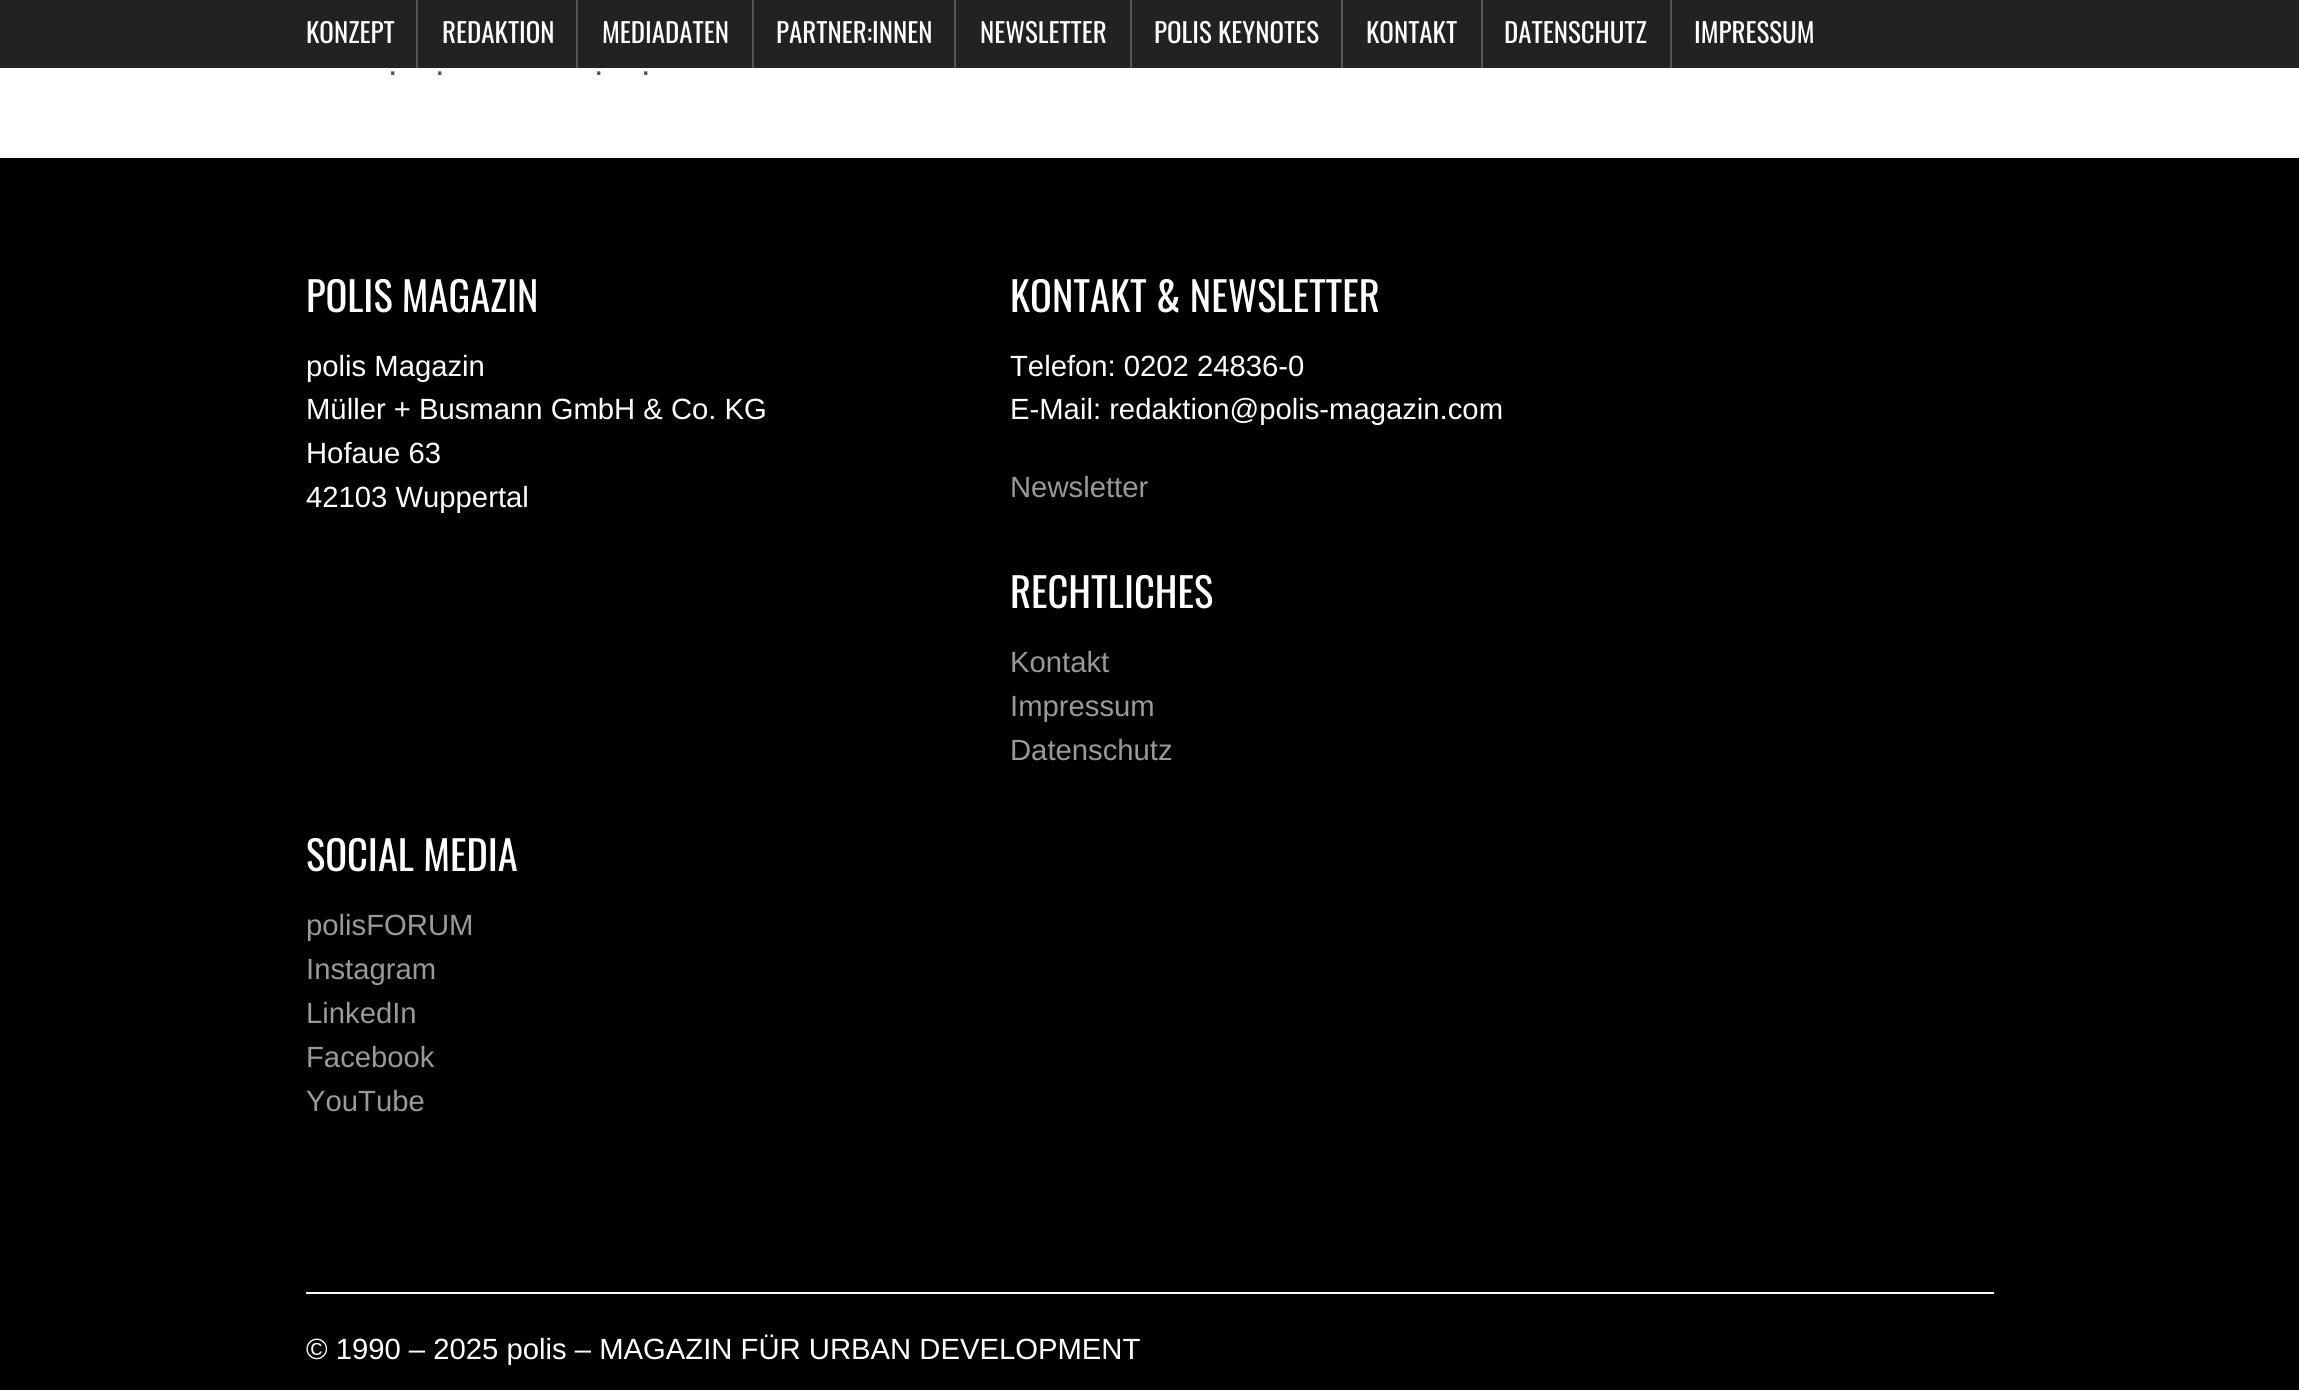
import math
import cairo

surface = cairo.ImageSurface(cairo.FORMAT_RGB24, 2299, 1390)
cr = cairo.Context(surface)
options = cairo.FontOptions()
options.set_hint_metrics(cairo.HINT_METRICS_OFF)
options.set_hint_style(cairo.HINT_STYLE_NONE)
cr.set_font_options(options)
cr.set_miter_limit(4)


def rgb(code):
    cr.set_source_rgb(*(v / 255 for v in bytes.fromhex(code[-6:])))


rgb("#ffffff")
cr.paint()
for x, y, w, h, color in [
    (0, 0, 2299, 68, "#222222"),
    (416, 0, 2, 68, "#555555"),
    (576, 0, 2, 68, "#555555"),
    (752, 0, 2, 68, "#555555"),
    (954, 0, 2, 68, "#555555"),
    (1130, 0, 2, 68, "#555555"),
    (1341, 0, 2, 68, "#555555"),
    (1481, 0, 2, 68, "#555555"),
    (1670, 0, 2, 68, "#555555"),
    (0, 158, 2299, 1232, "#000000"),
    (306, 1292, 1688, 2, "#ffffff"),
]:
    rgb(color)
    cr.rectangle(x, y, w, h)
    cr.fill()
cr.select_font_face("Oswald")
cr.set_font_size(27)
for x, y, s in [
    (306, 43, "KONZEPT"),
    (442, 43, "REDAKTION"),
    (602, 43, "MEDIADATEN"),
    (776, 43, "PARTNER:INNEN"),
    (980, 43, "NEWSLETTER"),
    (1154, 43, "POLIS KEYNOTES"),
    (1366, 43, "KONTAKT"),
    (1504, 43, "DATENSCHUTZ"),
    (1694, 43, "IMPRESSUM"),
]:
    cr.move_to(x, y)
    cr.show_text(s)
cr.select_font_face("Liberation Sans")
cr.set_font_size(34)
rgb("#555555")
for x, y, s in [
    (388, 75, "."),
    (435, 75, "."),
    (594, 75, "."),
    (641, 75, "."),
]:
    cr.move_to(x, y)
    cr.show_text(s)
cr.select_font_face("Oswald")
cr.set_font_size(40.5)
rgb("#ffffff")
cr.move_to(306, 312)
cr.show_text("POLIS MAGAZIN")
cr.select_font_face("Liberation Sans")
cr.set_font_size(29.25)
for x, y, s in [
    (306, 376, "polis Magazin"),
    (306, 419, "Müller + Busmann GmbH & Co. KG"),
    (306, 463, "Hofaue 63"),
    (306, 507, "42103 Wuppertal"),
]:
    cr.move_to(x, y)
    cr.show_text(s)
cr.select_font_face("Oswald")
cr.set_font_size(40.5)
cr.move_to(1010, 312)
cr.show_text("KONTAKT & NEWSLETTER")
cr.select_font_face("Liberation Sans")
cr.set_font_size(29.25)
cr.move_to(1010, 376)
cr.show_text("Telefon: 0202 24836-0")
cr.move_to(1010, 419)
cr.show_text("E-Mail: redaktion@polis-magazin.com")
rgb("#999999")
cr.move_to(1010, 497)
cr.show_text("Newsletter")
cr.select_font_face("Oswald")
cr.set_font_size(40.5)
rgb("#ffffff")
cr.move_to(1010, 608)
cr.show_text("RECHTLICHES")
cr.select_font_face("Liberation Sans")
cr.set_font_size(29.25)
rgb("#999999")
for x, y, s in [
    (1010, 672, "Kontakt"),
    (1010, 716, "Impressum"),
    (1010, 760, "Datenschutz"),
]:
    cr.move_to(x, y)
    cr.show_text(s)
cr.select_font_face("Oswald")
cr.set_font_size(40.5)
rgb("#ffffff")
cr.move_to(306, 871)
cr.show_text("SOCIAL MEDIA")
cr.select_font_face("Liberation Sans")
cr.set_font_size(29.25)
rgb("#999999")
for x, y, s in [
    (306, 935, "polisFORUM"),
    (306, 979, "Instagram"),
    (306, 1023, "LinkedIn"),
    (306, 1067, "Facebook"),
    (306, 1111, "YouTube"),
]:
    cr.move_to(x, y)
    cr.show_text(s)
rgb("#ffffff")
cr.move_to(306, 1359)
cr.show_text("© 1990 – 2025 polis – MAGAZIN FÜR URBAN DEVELOPMENT")
surface.write_to_png("page.png")
